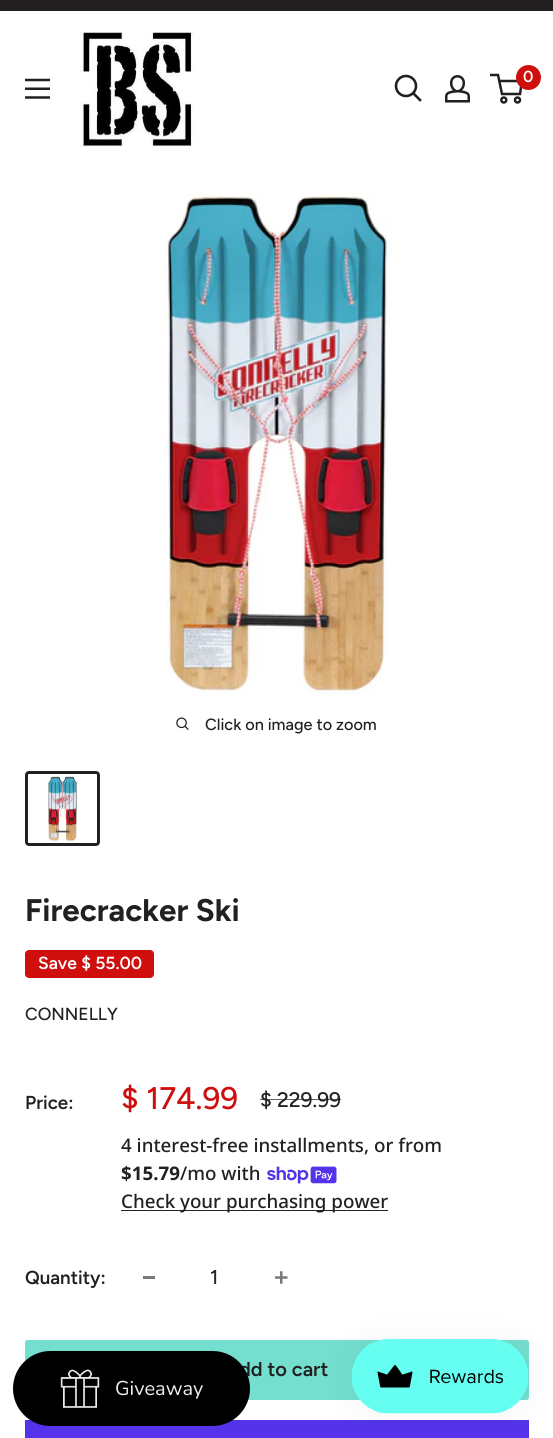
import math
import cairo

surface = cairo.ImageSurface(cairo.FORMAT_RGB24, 553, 1438)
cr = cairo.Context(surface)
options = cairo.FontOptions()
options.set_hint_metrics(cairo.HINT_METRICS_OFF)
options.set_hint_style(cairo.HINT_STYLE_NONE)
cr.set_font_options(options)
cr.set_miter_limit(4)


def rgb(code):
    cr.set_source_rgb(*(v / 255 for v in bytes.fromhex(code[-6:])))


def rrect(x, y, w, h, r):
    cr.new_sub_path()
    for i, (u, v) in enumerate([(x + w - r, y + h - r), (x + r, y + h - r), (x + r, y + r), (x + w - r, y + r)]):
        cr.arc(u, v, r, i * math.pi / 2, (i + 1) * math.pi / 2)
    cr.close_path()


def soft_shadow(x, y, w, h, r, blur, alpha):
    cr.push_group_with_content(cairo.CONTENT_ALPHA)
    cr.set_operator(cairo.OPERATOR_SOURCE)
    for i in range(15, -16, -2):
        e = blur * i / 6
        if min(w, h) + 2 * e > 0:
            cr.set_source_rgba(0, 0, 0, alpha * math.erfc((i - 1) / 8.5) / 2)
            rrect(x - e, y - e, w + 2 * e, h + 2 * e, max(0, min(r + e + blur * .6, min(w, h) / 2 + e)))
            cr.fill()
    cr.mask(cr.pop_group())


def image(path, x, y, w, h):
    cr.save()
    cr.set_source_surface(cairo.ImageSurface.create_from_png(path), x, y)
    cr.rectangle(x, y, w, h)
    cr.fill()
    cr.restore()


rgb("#ffffff")
cr.paint()
rgb("#222021")
cr.rectangle(0, 0, 553, 11)
cr.fill()
image("img/1.png", 79, 32, 115, 115)
cr.new_path()
cr.move_to(420, 100)
cr.line_to(413.5, 93.5)
cr.set_line_width(2.6)
cr.set_line_cap(cairo.LINE_CAP_SQUARE)
cr.stroke()
cr.arc(406, 86, 10, 0, 2 * math.pi)
cr.set_line_cap(cairo.LINE_CAP_BUTT)
cr.stroke()
image("img/2.png", 445, 75, 25, 28)
cr.arc(503.8, 100, 2.5, 0, 2 * math.pi)
cr.set_line_width(2.5)
cr.stroke()
cr.arc(517.5, 100, 2.5, 0, 2 * math.pi)
cr.stroke()
cr.new_path()
cr.move_to(499, 81)
cr.line_to(522, 81)
cr.line_to(520, 94)
cr.line_to(502, 94)
cr.line_to(498, 75)
cr.line_to(490, 75)
cr.stroke()
rgb("#cf0e0e")
cr.arc(528.5, 77.5, 12.5, 0, 2 * math.pi)
cr.fill()
image("img/3.png", 25, 78, 25, 21)
image("img/4.png", 166, 194, 222, 501)
image("img/5.png", 176, 717, 13, 13)
rrect(26.5, 772.5, 72, 72, 2.5)
rgb("#222021")
cr.set_line_width(3)
cr.stroke()
image("img/6.png", 47, 776, 31, 66)
rgb("#cf0e0e")
rrect(25, 950, 129, 28, 4)
cr.fill()
image("img/7.png", 267, 1166, 70, 18)
rgb("#222021")
cr.rectangle(121, 1210, 267, 1)
cr.fill()
rgb("#7a797a")
cr.rectangle(143, 1276, 12, 3)
cr.fill()
image("img/8.png", 275, 1271, 13, 13)
rgb("#74decf")
rrect(25, 1340, 504, 60, 2.5)
cr.fill()
rgb("#5433eb")
cr.rectangle(25, 1420, 504, 18)
cr.fill()
rgb("#000000")
soft_shadow(351, 1339, 178, 75, 37.5, 15.5, 0.05)
image("img/10.png", 351, 1339, 178, 75)
cr.select_font_face("Figtree SemiBold")
cr.set_font_size(16)
rgb("#ffffff")
cr.move_to(523, 82)
cr.show_text("0")
cr.select_font_face("Figtree Medium")
cr.set_font_size(16.25)
rgb("#222021")
cr.move_to(205, 730)
cr.show_text("Click on image to zoom")
cr.select_font_face("Figtree", cairo.FONT_SLANT_NORMAL, cairo.FONT_WEIGHT_BOLD)
cr.set_font_size(31.25)
cr.move_to(25, 921)
cr.show_text("Firecracker Ski")
cr.select_font_face("Figtree SemiBold")
cr.set_font_size(17.5)
rgb("#ffffff")
cr.move_to(38, 969)
cr.show_text("Save $ 55.00")
cr.select_font_face("Figtree Medium")
rgb("#222021")
cr.move_to(25, 1020)
cr.show_text("CONNELLY")
cr.select_font_face("Figtree SemiBold")
cr.set_font_size(18.75)
cr.move_to(25, 1109)
cr.show_text("Price:")
cr.select_font_face("Figtree Medium")
cr.set_font_size(31.25)
rgb("#cf0e0e")
cr.move_to(121, 1109)
cr.show_text("$ 174.99")
cr.set_font_size(21)
rgb("#222021")
cr.move_to(260, 1107)
cr.show_text("$ 229.99")
cr.set_source_rgba(0.133, 0.125, 0.129, 0.7)
cr.rectangle(260, 1099, 81, 1)
cr.fill()
cr.select_font_face("Noto Sans Medium")
cr.set_font_size(18.75)
rgb("#222021")
cr.move_to(121, 1152)
cr.show_text("4 interest-free installments, or from")
cr.select_font_face("Noto Sans", cairo.FONT_SLANT_NORMAL, cairo.FONT_WEIGHT_BOLD)
cr.move_to(121, 1180)
cr.show_text("$15.79")
cr.select_font_face("Noto Sans Medium")
cr.move_to(180, 1180)
cr.show_text("/mo with")
cr.move_to(121, 1208)
cr.show_text("Check your purchasing power")
cr.select_font_face("Figtree SemiBold")
cr.move_to(25, 1284)
cr.show_text("Quantity:")
cr.select_font_face("Figtree Medium")
cr.set_font_size(20)
cr.move_to(210, 1284)
cr.show_text("1")
cr.select_font_face("Figtree SemiBold")
cr.move_to(239, 1376)
cr.show_text("dd to cart")
rgb("#000000")
rrect(13, 1351, 237, 75, 37.5)
cr.fill()
image("img/9.png", 60, 1369, 40, 39)
cr.select_font_face("Nunito")
rgb("#eeeeee")
cr.move_to(115, 1395)
cr.show_text("Giveaway")
surface.write_to_png("page.png")
